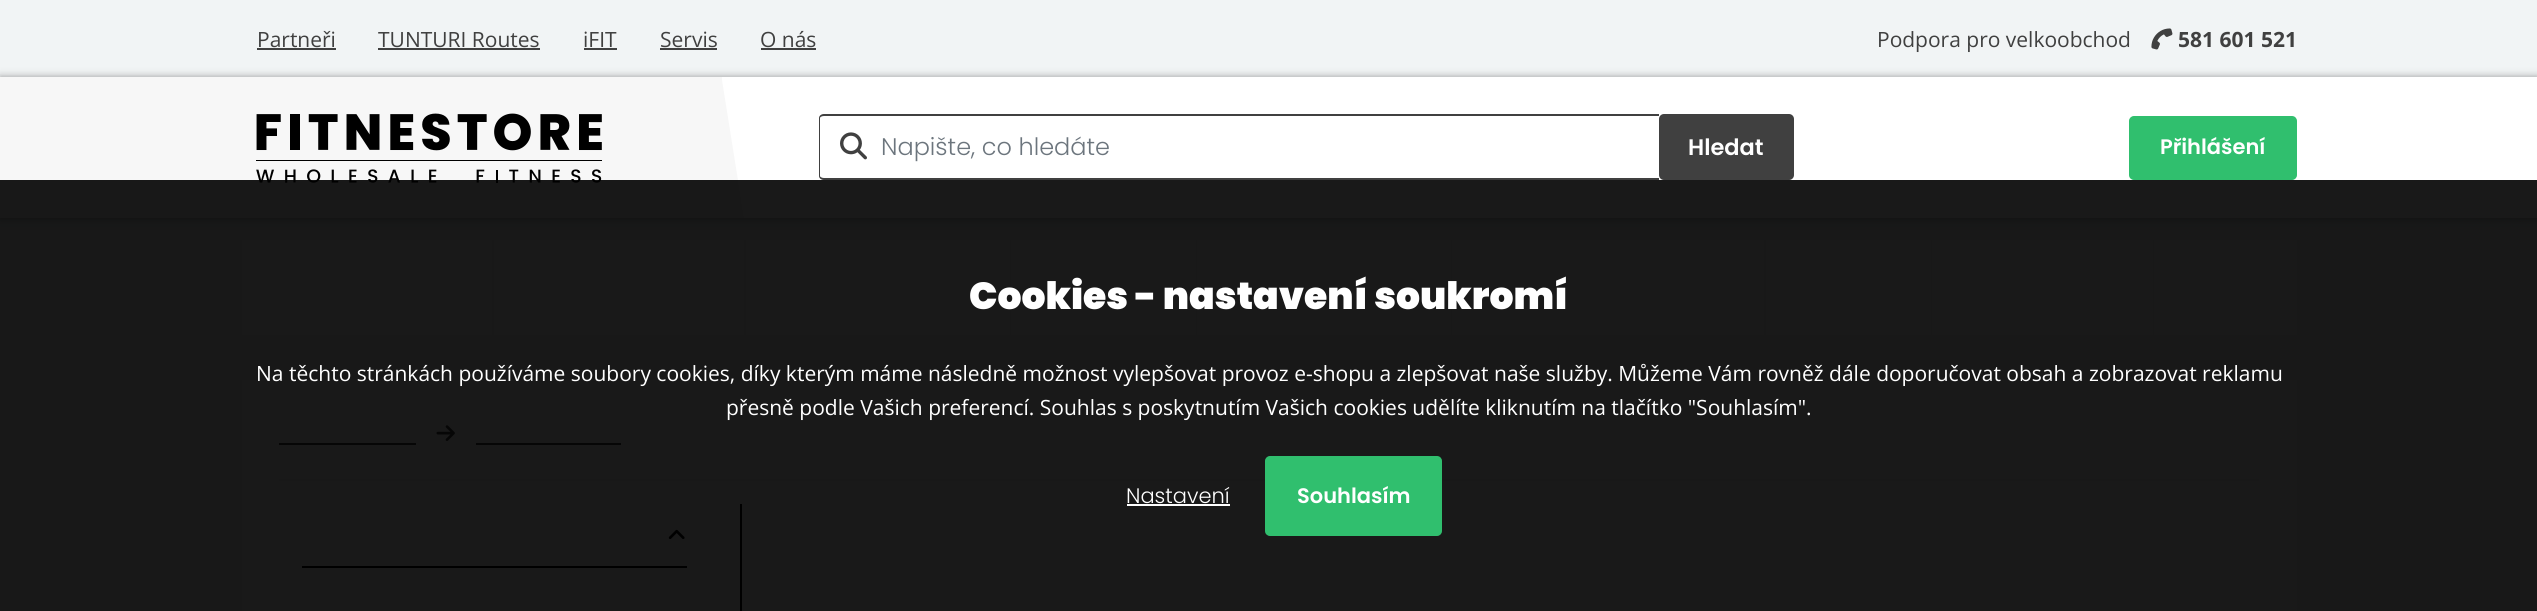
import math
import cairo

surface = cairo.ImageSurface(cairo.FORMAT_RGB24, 2537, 611)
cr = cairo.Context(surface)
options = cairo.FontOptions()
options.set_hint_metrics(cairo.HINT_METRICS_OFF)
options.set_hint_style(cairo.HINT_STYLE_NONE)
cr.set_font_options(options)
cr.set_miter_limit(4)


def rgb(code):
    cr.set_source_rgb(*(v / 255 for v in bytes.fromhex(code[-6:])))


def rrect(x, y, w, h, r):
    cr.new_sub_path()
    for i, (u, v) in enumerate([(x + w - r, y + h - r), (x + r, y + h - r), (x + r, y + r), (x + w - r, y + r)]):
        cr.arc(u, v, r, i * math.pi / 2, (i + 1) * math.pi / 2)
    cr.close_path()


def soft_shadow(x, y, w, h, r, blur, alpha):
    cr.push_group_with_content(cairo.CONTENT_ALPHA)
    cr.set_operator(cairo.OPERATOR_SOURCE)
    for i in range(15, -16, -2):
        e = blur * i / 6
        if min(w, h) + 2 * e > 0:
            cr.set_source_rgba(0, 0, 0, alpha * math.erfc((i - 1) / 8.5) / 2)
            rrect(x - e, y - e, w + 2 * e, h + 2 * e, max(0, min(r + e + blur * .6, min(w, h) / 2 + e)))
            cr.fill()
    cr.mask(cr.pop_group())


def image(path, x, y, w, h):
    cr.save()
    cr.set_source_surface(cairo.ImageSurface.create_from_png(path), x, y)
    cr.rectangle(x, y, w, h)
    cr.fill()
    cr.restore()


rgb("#f1f4f5")
cr.paint()
for x, y, w, h, color in [
    (257, 48, 79, 2, "#404040"),
    (378, 48, 162, 2, "#404040"),
    (584, 48, 33, 2, "#404040"),
    (660, 48, 57, 2, "#404040"),
    (761, 48, 55, 2, "#404040"),
]:
    rgb(color)
    cr.rectangle(x, y, w, h)
    cr.fill()
image("img/1.png", 2151, 28, 22, 22)
rgb("#999999")
soft_shadow(0, 77, 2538, 141, 0, 4, 1)
rgb("#f7f7f7")
cr.rectangle(0, 77, 744, 141)
cr.fill()
rgb("#ffffff")
cr.rectangle(744, 77, 1793, 141)
cr.fill()
image("img/2.png", 256, 113, 346, 70)
cr.new_path()
cr.move_to(722, 77)
cr.line_to(722, 80)
cr.line_to(744, 218)
cr.line_to(744, 77)
cr.close_path()
cr.fill()
image("img/3.png", 840, 132, 27, 28)
rgb("#404040")
cr.set_fill_rule(cairo.FILL_RULE_EVEN_ODD)
cr.new_path()
cr.move_to(824, 114)
cr.line_to(1659, 114)
cr.line_to(1659, 180)
cr.line_to(824, 180)
cr.curve_to(821, 180, 819, 178, 819, 176)
cr.line_to(819, 118)
cr.curve_to(819, 116, 821, 114, 824, 114)
cr.close_path()
cr.move_to(824, 116)
cr.line_to(1659, 116)
cr.line_to(1659, 178)
cr.line_to(824, 178)
cr.curve_to(822, 178, 820, 177, 820, 176)
cr.line_to(820, 118)
cr.curve_to(820, 117, 822, 116, 824, 116)
cr.close_path()
cr.fill()
rrect(1659, 114, 135, 66, 5)
cr.fill()
rgb("#30bf6e")
rrect(2130, 117, 166, 62, 4)
cr.fill_preserve()
cr.stroke()
for x, y, w, h, color in [
    (242, 240, 1689, 95, "#ffffff"),
    (492, 240, 2, 95, "#f1f4f5"),
    (744, 240, 2, 95, "#f1f4f5"),
    (1010, 240, 1, 95, "#f1f4f5"),
    (1196, 240, 1, 95, "#f1f4f5"),
    (1451, 240, 1, 95, "#f1f4f5"),
    (1764, 240, 2, 95, "#f1f4f5"),
    (1932, 240, 221, 95, "#ffffff"),
    (2154, 240, 143, 95, "#ffffff"),
    (242, 380, 2055, 231, "#ffffff"),
    (279, 479, 1980, 2, "#f1f4f5"),
]:
    rgb(color)
    cr.rectangle(x, y, w, h)
    cr.fill()
image("img/4.png", 436, 425, 19, 16)
for x, y, w, h, color in [
    (279, 443, 137, 2, "#404040"),
    (476, 443, 145, 2, "#404040"),
    (740, 504, 2, 107, "#000000"),
    (302, 566, 385, 2, "#000000"),
]:
    rgb(color)
    cr.rectangle(x, y, w, h)
    cr.fill()
image("img/5.png", 668, 529, 17, 10)
cr.set_source_rgba(0, 0, 0, 0.9)
cr.rectangle(0, 180, 2537, 431)
cr.fill()
rgb("#ffffff")
cr.rectangle(1127, 504, 103, 2)
cr.fill()
rgb("#30bf6e")
rrect(1266, 457, 175, 78, 4)
cr.fill_preserve()
cr.stroke()
cr.select_font_face("Open Sans")
cr.set_font_size(21)
rgb("#404040")
for x, y, s in [
    (257, 47, "Partneři"),
    (378, 47, "TUNTURI Routes"),
    (583, 47, "iFIT"),
    (660, 47, "Servis"),
    (760, 47, "O nás"),
    (1877, 47, "Podpora pro velkoobchod"),
]:
    cr.move_to(x, y)
    cr.show_text(s)
cr.select_font_face("Open Sans", cairo.FONT_SLANT_NORMAL, cairo.FONT_WEIGHT_BOLD)
cr.move_to(2178, 47)
cr.show_text("581 601 521")
cr.select_font_face("Poppins Light")
cr.set_font_size(24)
rgb("#6c757d")
cr.move_to(881, 155)
cr.show_text("Napište, co hledáte")
cr.select_font_face("Poppins SemiBold")
cr.set_font_size(22.5)
rgb("#ffffff")
cr.move_to(1688, 155)
cr.show_text("Hledat")
cr.set_font_size(21)
cr.move_to(2160, 154)
cr.show_text("Přihlášení")
cr.select_font_face("Poppins Black")
cr.set_font_size(37.75)
cr.move_to(969, 309)
cr.show_text("Cookies - nastavení soukromí")
cr.select_font_face("Open Sans")
cr.set_font_size(21)
cr.move_to(256, 381)
cr.show_text("Na těchto stránkách používáme soubory cookies, díky kterým máme následně možnost vylepšovat provoz e-shopu a zlepšovat naše služby. Můžeme Vám rovněž dále doporučovat obsah a zobrazovat reklamu")
cr.move_to(726, 415)
cr.show_text("přesně podle Vašich preferencí. Souhlas s poskytnutím Vašich cookies udělíte kliknutím na tlačítko \"Souhlasím\".")
cr.select_font_face("Poppins Light")
cr.move_to(1126, 503)
cr.show_text("Nastavení")
cr.select_font_face("Poppins SemiBold")
cr.move_to(1297, 503)
cr.show_text("Souhlasím")
surface.write_to_png("page.png")
